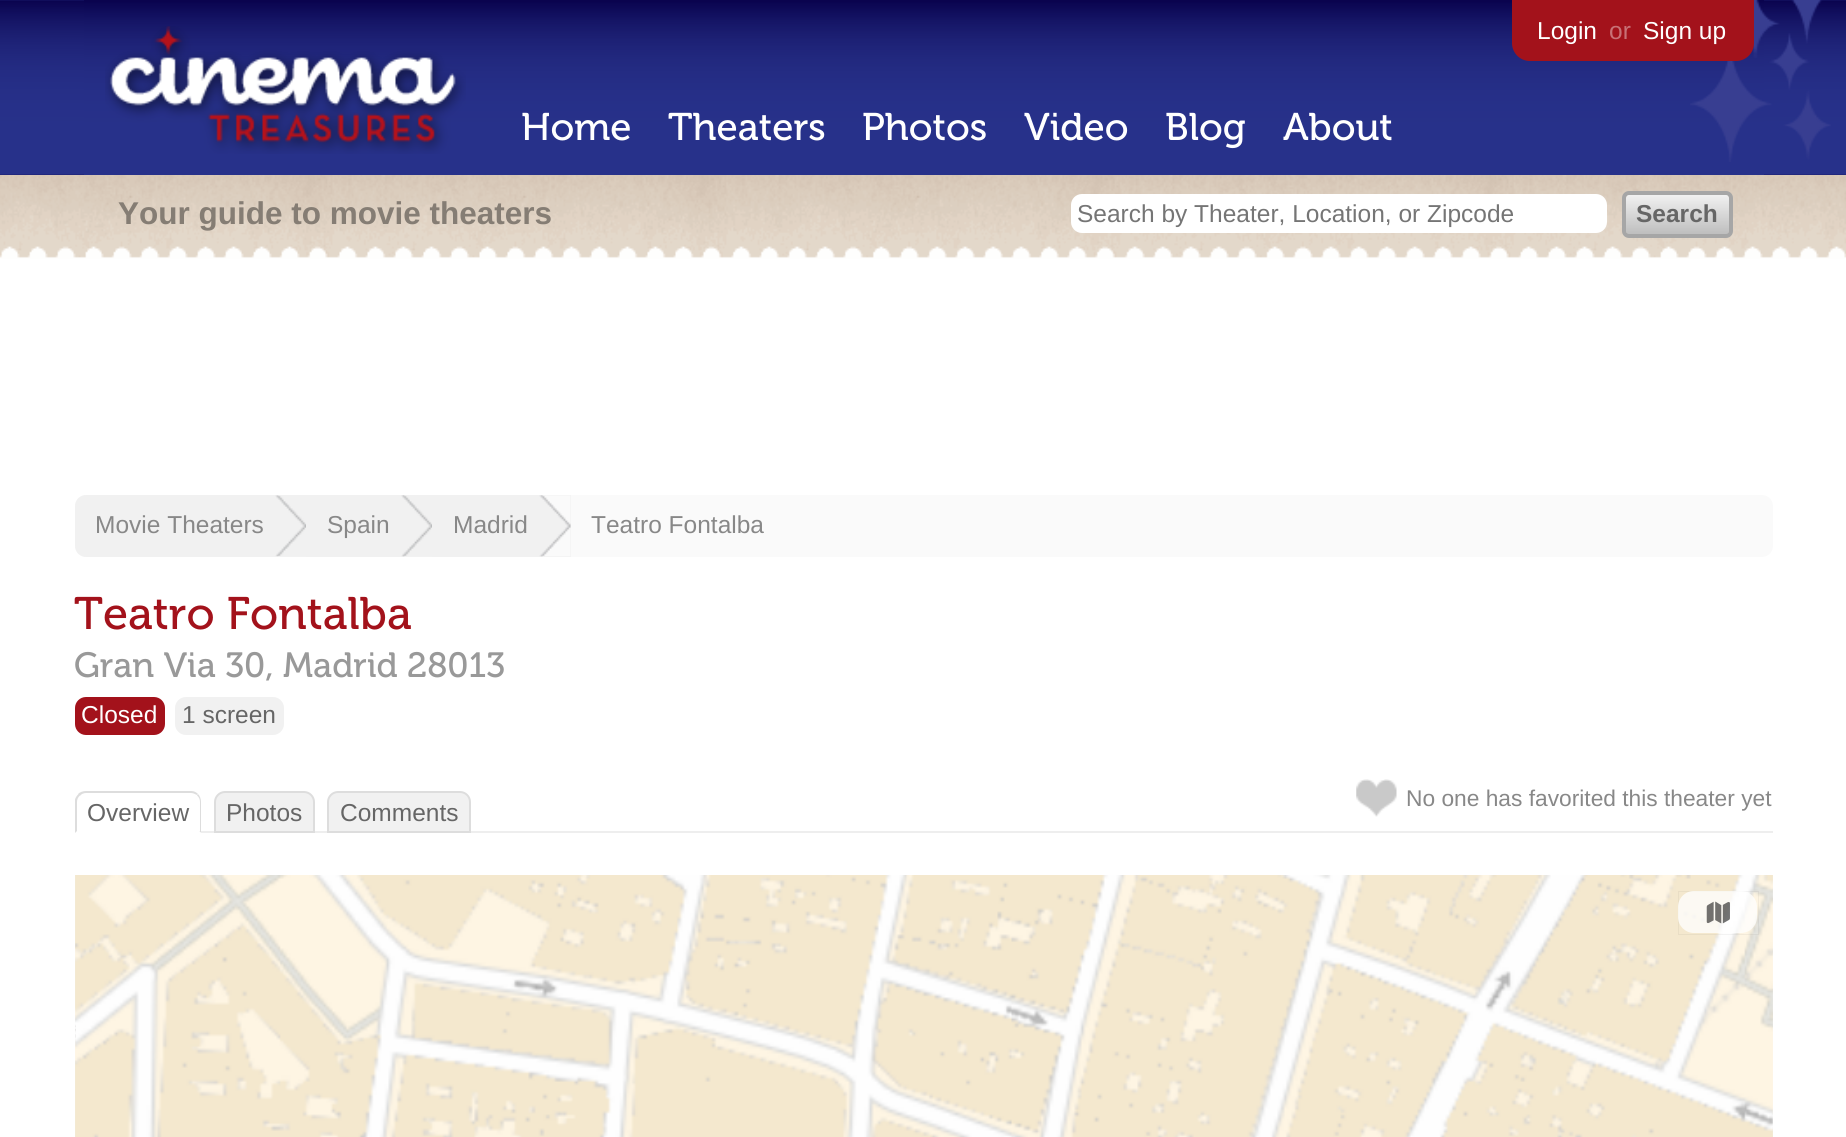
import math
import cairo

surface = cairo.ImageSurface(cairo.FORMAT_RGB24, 1846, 1137)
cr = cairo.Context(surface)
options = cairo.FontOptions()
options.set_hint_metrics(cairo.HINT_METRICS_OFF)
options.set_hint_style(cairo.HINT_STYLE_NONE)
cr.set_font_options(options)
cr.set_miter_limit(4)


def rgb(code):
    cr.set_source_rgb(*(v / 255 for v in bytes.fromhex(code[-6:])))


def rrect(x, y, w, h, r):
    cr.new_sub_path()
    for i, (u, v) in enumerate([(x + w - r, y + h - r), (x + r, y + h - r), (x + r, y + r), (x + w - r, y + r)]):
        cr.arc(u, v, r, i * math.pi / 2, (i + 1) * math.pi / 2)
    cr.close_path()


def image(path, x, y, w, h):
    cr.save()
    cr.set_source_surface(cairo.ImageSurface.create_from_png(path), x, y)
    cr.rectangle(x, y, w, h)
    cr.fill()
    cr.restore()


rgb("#ffffff")
cr.paint()
image("img/1.png", 0, 0, 1846, 175)
image("img/2.png", 84, 0, 1680, 175)
image("img/3.png", 105, 26, 361, 128)
image("img/4.png", 1690, 0, 141, 162)
rgb("#a3121b")
cr.new_path()
cr.move_to(1512, 0)
cr.line_to(1754, 0)
cr.line_to(1754, 43)
cr.curve_to(1754, 53, 1746, 61, 1736, 61)
cr.line_to(1530, 61)
cr.curve_to(1520, 61, 1512, 53, 1512, 43)
cr.close_path()
cr.fill()
image("img/5.png", 0, 175, 1846, 84)
rgb("#ffffff")
rrect(1071, 194, 536, 39, 11)
cr.fill()
gradient = cairo.LinearGradient(1677, 194, 1677, 235)
gradient.add_color_stop_rgba(0, 0.949, 0.949, 0.949, 1)
gradient.add_color_stop_rgba(1, 0.741, 0.741, 0.741, 1)
cr.set_source(gradient)
rrect(1626, 194, 103, 41, 4)
cr.fill()
rrect(1624, 193, 107, 43, 5)
rgb("#a6a6a6")
cr.set_line_width(4)
cr.stroke()
rgb("#fafafa")
rrect(75, 495, 1698, 62, 11)
cr.fill()
rgb("#f1f1f1")
cr.new_path()
cr.move_to(86, 495)
cr.line_to(306, 495)
cr.line_to(306, 557)
cr.line_to(86, 557)
cr.curve_to(80, 557, 75, 552, 75, 546)
cr.line_to(75, 506)
cr.curve_to(75, 500, 80, 495, 86, 495)
cr.close_path()
cr.fill()
image("img/6.png", 275, 495, 31, 62)
cr.rectangle(306, 495, 265, 62)
cr.fill()
image("img/7.png", 401, 495, 31, 62)
image("img/8.png", 539, 495, 32, 62)
rgb("#a3121b")
rrect(75, 697, 90, 38, 11)
cr.fill()
rgb("#f1f1f1")
rrect(175, 697, 109, 38, 11)
cr.fill()
rgb("#eeeeee")
cr.rectangle(201, 831, 1572, 2)
cr.fill()
rgb("#dddddd")
cr.new_path()
cr.move_to(86, 791)
cr.curve_to(83, 791, 80, 792, 78, 794)
cr.line_to(80, 796)
cr.curve_to(81, 794, 84, 793, 86, 793)
cr.line_to(191, 793)
cr.curve_to(193, 793, 195, 794, 197, 795)
cr.line_to(198, 794)
cr.curve_to(196, 792, 194, 791, 191, 791)
cr.close_path()
cr.fill()
cr.new_path()
cr.move_to(198, 794)
cr.curve_to(200, 796, 201, 799, 201, 802)
cr.line_to(201, 833)
cr.line_to(199, 831)
cr.line_to(200, 831)
cr.line_to(200, 802)
cr.curve_to(200, 799.5, 199, 797, 197, 795.5)
cr.close_path()
cr.fill()
rgb("#ffffff")
cr.new_path()
cr.move_to(75, 833)
cr.line_to(201, 833)
cr.line_to(199, 831)
cr.line_to(77, 831)
cr.close_path()
cr.fill()
rgb("#dddddd")
cr.new_path()
cr.move_to(75, 833)
cr.line_to(75, 799.5)
cr.curve_to(75.5, 797.5, 77, 795.5, 78.5, 794)
cr.line_to(80, 795.5)
cr.curve_to(78, 797, 77, 799.5, 77, 802)
cr.line_to(77, 831)
cr.close_path()
cr.fill()
rgb("#f1f1f1")
cr.new_path()
cr.move_to(225, 792)
cr.line_to(304, 792)
cr.curve_to(309.5, 792, 314, 796.5, 314, 802)
cr.line_to(314, 832)
cr.line_to(215, 832)
cr.line_to(215, 802)
cr.curve_to(215, 796.5, 219.5, 792, 225, 792)
cr.close_path()
cr.fill_preserve()
rgb("#dddddd")
cr.set_line_width(2)
cr.stroke()
rgb("#f1f1f1")
cr.new_path()
cr.move_to(338, 792)
cr.line_to(460, 792)
cr.curve_to(465.5, 792, 470, 796.5, 470, 802)
cr.line_to(470, 832)
cr.line_to(328, 832)
cr.line_to(328, 802)
cr.curve_to(328, 796.5, 332.5, 792, 338, 792)
cr.close_path()
cr.fill_preserve()
rgb("#dddddd")
cr.stroke()
image("img/9.png", 1356, 779, 41, 38)
image("img/10.png", 75, 875, 1698, 262)
image("img/11.png", 75, 875, 1698, 262)
cr.rectangle(1678.45, 891.45, 80.1, 43.1)
cr.set_source_rgba(0, 0, 0, 0.05)
cr.set_line_width(0.9)
cr.stroke()
cr.set_source_rgba(1, 1, 1, 0.75)
rrect(1678, 891, 79, 42, 16)
cr.fill()
image("img/12.png", 1706, 901, 24, 23)
cr.select_font_face("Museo")
cr.set_font_size(38.5)
rgb("#ffffff")
for x, y, s in [
    (521, 140, "Home"),
    (668, 140, "Theaters"),
    (862, 140, "Photos"),
    (1024, 140, "Video"),
    (1165, 140, "Blog"),
    (1283, 140, "About"),
]:
    cr.move_to(x, y)
    cr.show_text(s)
cr.select_font_face("Liberation Sans")
cr.set_font_size(24.5)
cr.move_to(1537, 39)
cr.show_text("Login")
rgb("#c87176")
cr.move_to(1609, 39)
cr.show_text("or")
rgb("#ffffff")
cr.move_to(1643, 39)
cr.show_text("Sign up")
cr.select_font_face("Liberation Sans", cairo.FONT_SLANT_NORMAL, cairo.FONT_WEIGHT_BOLD)
cr.set_font_size(31.5)
rgb("#857d74")
cr.move_to(118, 224)
cr.show_text("Your guide to movie theaters")
cr.select_font_face("Liberation Sans")
cr.set_font_size(24.5)
rgb("#757575")
cr.move_to(1077, 222)
cr.show_text("Search by Theater, Location, or Zipcode")
cr.select_font_face("Liberation Sans", cairo.FONT_SLANT_NORMAL, cairo.FONT_WEIGHT_BOLD)
rgb("#666666")
cr.move_to(1636, 222)
cr.show_text("Search")
cr.select_font_face("Liberation Sans")
rgb("#888888")
for x, y, s in [
    (95, 533, "Movie Theaters"),
    (327, 533, "Spain"),
    (453, 533, "Madrid"),
    (591, 533, "Teatro Fontalba"),
]:
    cr.move_to(x, y)
    cr.show_text(s)
cr.select_font_face("Museo")
cr.set_font_size(45.5)
rgb("#a3121b")
cr.move_to(74, 629)
cr.show_text("Teatro Fontalba")
cr.set_font_size(35)
rgb("#999999")
cr.move_to(74, 677)
cr.show_text("Gran Via 30, Madrid 28013")
cr.select_font_face("Liberation Sans")
cr.set_font_size(24.5)
rgb("#ffffff")
cr.move_to(81, 723)
cr.show_text("Closed")
rgb("#666666")
for x, y, s in [
    (182, 723, "1 screen"),
    (87, 821, "Overview"),
    (226, 821, "Photos"),
    (340, 821, "Comments"),
]:
    cr.move_to(x, y)
    cr.show_text(s)
cr.set_font_size(22.75)
rgb("#888888")
cr.move_to(1406, 806)
cr.show_text("No one has favorited this theater yet")
surface.write_to_png("page.png")
